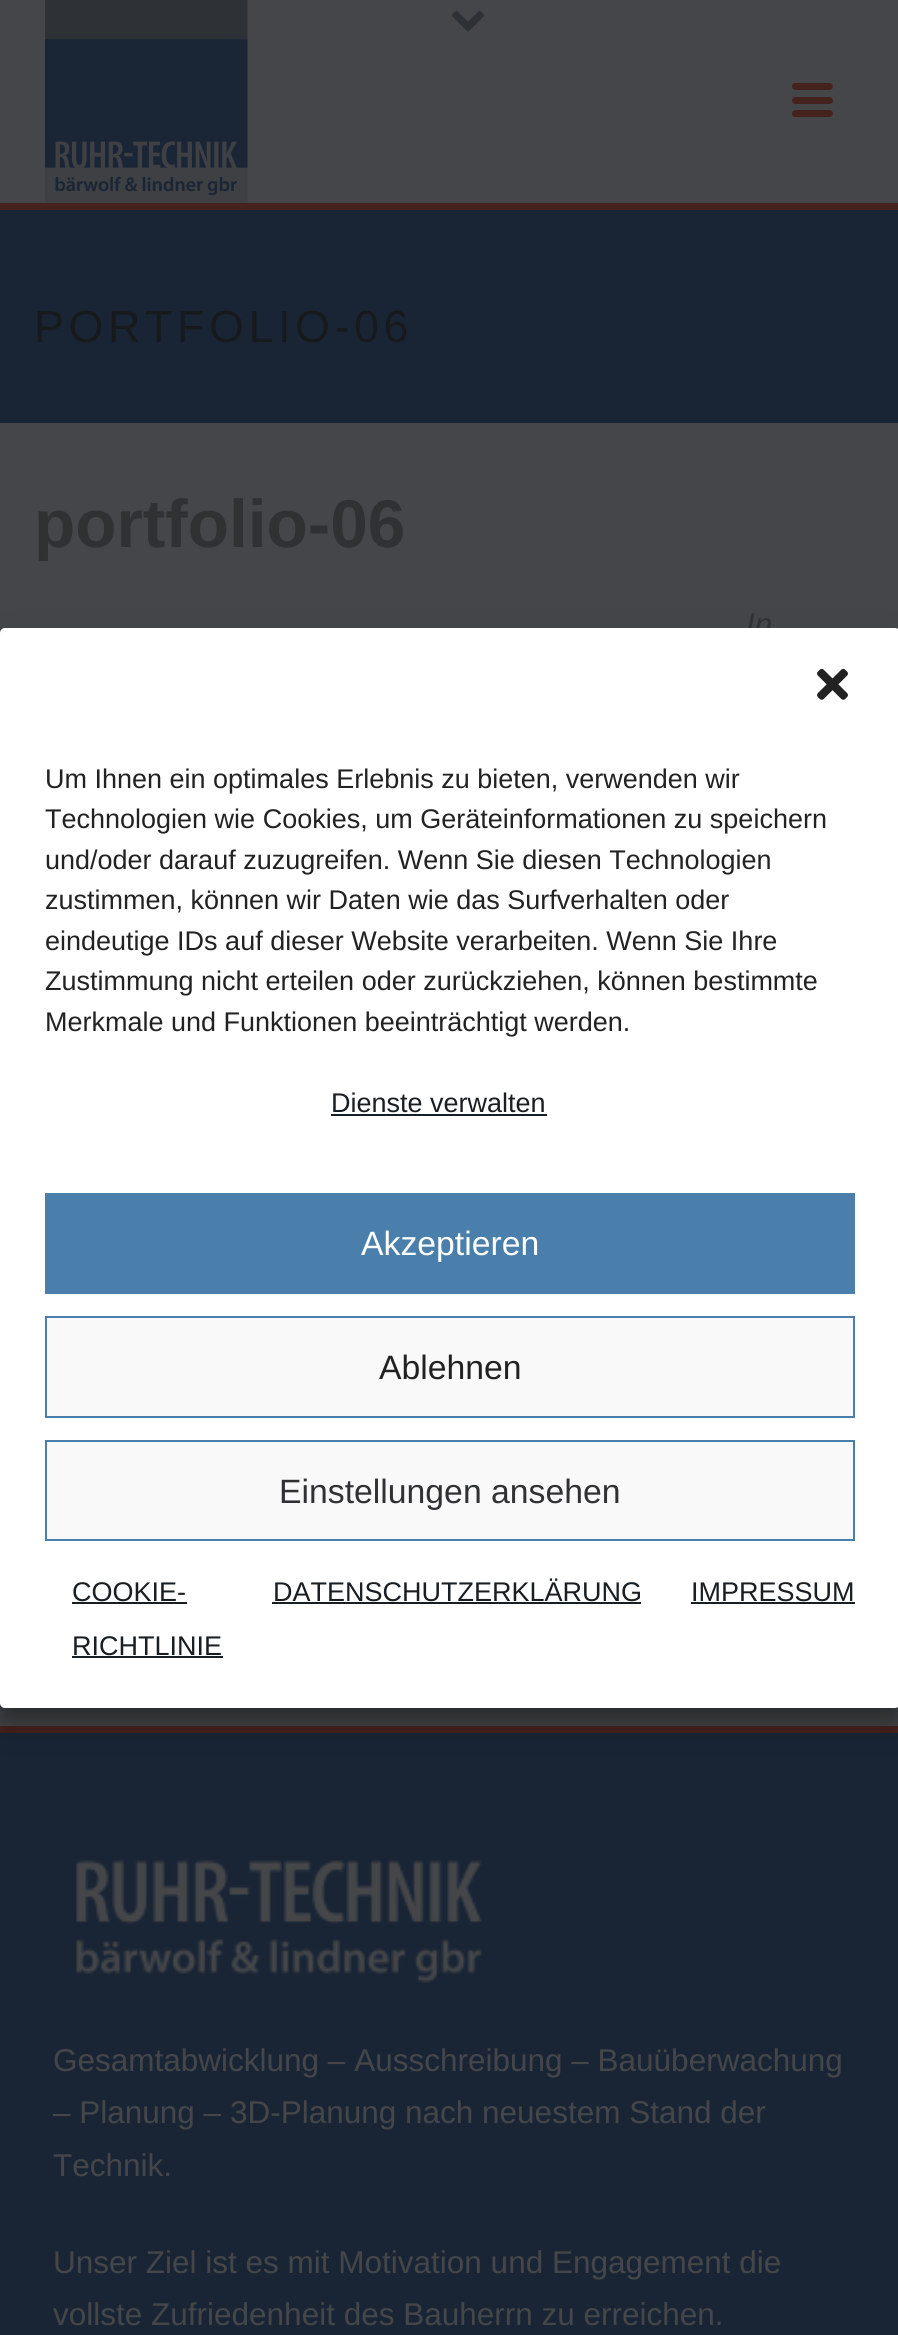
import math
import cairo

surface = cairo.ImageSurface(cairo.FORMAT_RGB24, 898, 2335)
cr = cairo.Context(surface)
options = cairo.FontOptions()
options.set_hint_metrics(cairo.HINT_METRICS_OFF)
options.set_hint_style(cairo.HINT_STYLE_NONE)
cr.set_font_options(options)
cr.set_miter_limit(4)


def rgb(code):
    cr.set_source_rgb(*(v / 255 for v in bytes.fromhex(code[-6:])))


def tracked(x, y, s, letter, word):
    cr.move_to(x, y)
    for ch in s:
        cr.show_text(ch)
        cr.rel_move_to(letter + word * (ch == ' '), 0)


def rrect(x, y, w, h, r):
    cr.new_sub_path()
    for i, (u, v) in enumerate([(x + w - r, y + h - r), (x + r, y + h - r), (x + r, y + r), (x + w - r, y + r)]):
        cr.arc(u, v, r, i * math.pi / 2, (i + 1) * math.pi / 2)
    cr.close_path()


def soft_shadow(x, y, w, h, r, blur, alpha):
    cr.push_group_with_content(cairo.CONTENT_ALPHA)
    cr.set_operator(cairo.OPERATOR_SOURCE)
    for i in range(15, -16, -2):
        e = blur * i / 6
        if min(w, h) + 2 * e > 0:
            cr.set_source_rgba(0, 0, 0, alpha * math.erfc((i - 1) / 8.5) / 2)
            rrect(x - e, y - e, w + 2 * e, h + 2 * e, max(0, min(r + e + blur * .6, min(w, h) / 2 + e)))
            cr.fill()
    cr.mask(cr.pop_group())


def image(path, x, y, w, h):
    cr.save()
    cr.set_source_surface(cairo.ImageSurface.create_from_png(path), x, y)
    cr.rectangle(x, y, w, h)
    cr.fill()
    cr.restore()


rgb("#444649")
cr.paint()
rgb("#192535")
cr.rectangle(0, 210, 898, 213)
cr.fill()
rgb("#44231e")
cr.rectangle(0, 203, 898, 7)
cr.fill()
image("img/1.png", 45, 0, 203, 203)
rrect(792, 83, 41, 7, 3.5)
cr.fill()
rrect(792, 97, 41, 7, 3.5)
cr.fill()
rrect(792, 110, 41, 7, 3.5)
cr.fill()
image("img/2.png", 451, 10, 34, 22)
rgb("#192535")
cr.rectangle(0, 1733, 898, 602)
cr.fill()
rgb("#44231e")
cr.rectangle(0, 1726, 898, 7)
cr.fill()
image("img/3.png", 76, 1860, 407, 123)
rgb("#000000")
soft_shadow(0, 641, 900, 1080, 5, 7, 0.23)
soft_shadow(0, 650, 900, 1080, 5, 22.5, 0.19)
cr.select_font_face("Liberation Sans")
cr.set_font_size(45)
rgb("#171a1c")
tracked(34, 342, "PORTFOLIO-06", 4.5, 0)
cr.select_font_face("Liberation Sans", cairo.FONT_SLANT_NORMAL, cairo.FONT_WEIGHT_BOLD)
cr.set_font_size(67.5)
rgb("#2f3133")
cr.move_to(34, 547)
cr.show_text("portfolio-06")
cr.select_font_face("Liberation Sans", cairo.FONT_SLANT_ITALIC)
cr.set_font_size(31.5)
cr.move_to(746, 635)
cr.show_text("In")
cr.select_font_face("Liberation Sans")
rgb("#444649")
for x, y, s in [
    (53, 2071, "Gesamtabwicklung – Ausschreibung – Bauüberwachung"),
    (53, 2123, "– Planung – 3D-Planung nach neuestem Stand der"),
    (53, 2176, "Technik."),
    (53, 2273, "Unser Ziel ist es mit Motivation und Engagement die"),
    (53, 2325, "vollste Zufriedenheit des Bauherrn zu erreichen."),
]:
    cr.move_to(x, y)
    cr.show_text(s)
rgb("#ffffff")
rrect(0, 628, 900, 1080, 5)
cr.fill()
image("img/4.png", 817, 668, 31, 32)
cr.set_font_size(27)
rgb("#222222")
for x, y, s in [
    (45, 788, "Um Ihnen ein optimales Erlebnis zu bieten, verwenden wir"),
    (45, 828, "Technologien wie Cookies, um Geräteinformationen zu speichern"),
    (45, 869, "und/oder darauf zuzugreifen. Wenn Sie diesen Technologien"),
    (45, 909, "zustimmen, können wir Daten wie das Surfverhalten oder"),
    (45, 950, "eindeutige IDs auf dieser Website verarbeiten. Wenn Sie Ihre"),
    (45, 990, "Zustimmung nicht erteilen oder zurückziehen, können bestimmte"),
    (45, 1031, "Merkmale und Funktionen beeinträchtigt werden."),
]:
    cr.move_to(x, y)
    cr.show_text(s)
rgb("#191e23")
cr.move_to(331, 1112)
cr.show_text("Dienste verwalten")
cr.rectangle(331, 1114, 216, 2)
cr.fill()
rgb("#4b7fab")
cr.rectangle(45, 1193, 810, 101)
cr.fill()
cr.set_font_size(33.75)
rgb("#ffffff")
cr.move_to(361, 1255)
cr.show_text("Akzeptieren")
rgb("#f9f9f9")
cr.rectangle(46, 1317, 808, 100)
cr.fill_preserve()
rgb("#4b7fab")
cr.stroke()
rgb("#222222")
cr.move_to(379, 1379)
cr.show_text("Ablehnen")
rgb("#f9f9f9")
cr.rectangle(46, 1441, 808, 99)
cr.fill_preserve()
rgb("#4b7fab")
cr.stroke()
rgb("#2f3133")
cr.move_to(279, 1503)
cr.show_text("Einstellungen ansehen")
cr.set_font_size(27)
rgb("#191e23")
cr.move_to(72, 1601)
cr.show_text("COOKIE-")
cr.rectangle(72, 1602, 115, 2)
cr.fill()
cr.move_to(72, 1655)
cr.show_text("RICHTLINIE")
cr.rectangle(72, 1656, 151, 2)
cr.fill()
cr.move_to(273, 1601)
cr.show_text("DATENSCHUTZERKLÄRUNG")
cr.rectangle(272, 1602, 369, 2)
cr.fill()
cr.move_to(691, 1601)
cr.show_text("IMPRESSUM")
cr.rectangle(691, 1602, 164, 2)
cr.fill()
surface.write_to_png("page.png")
